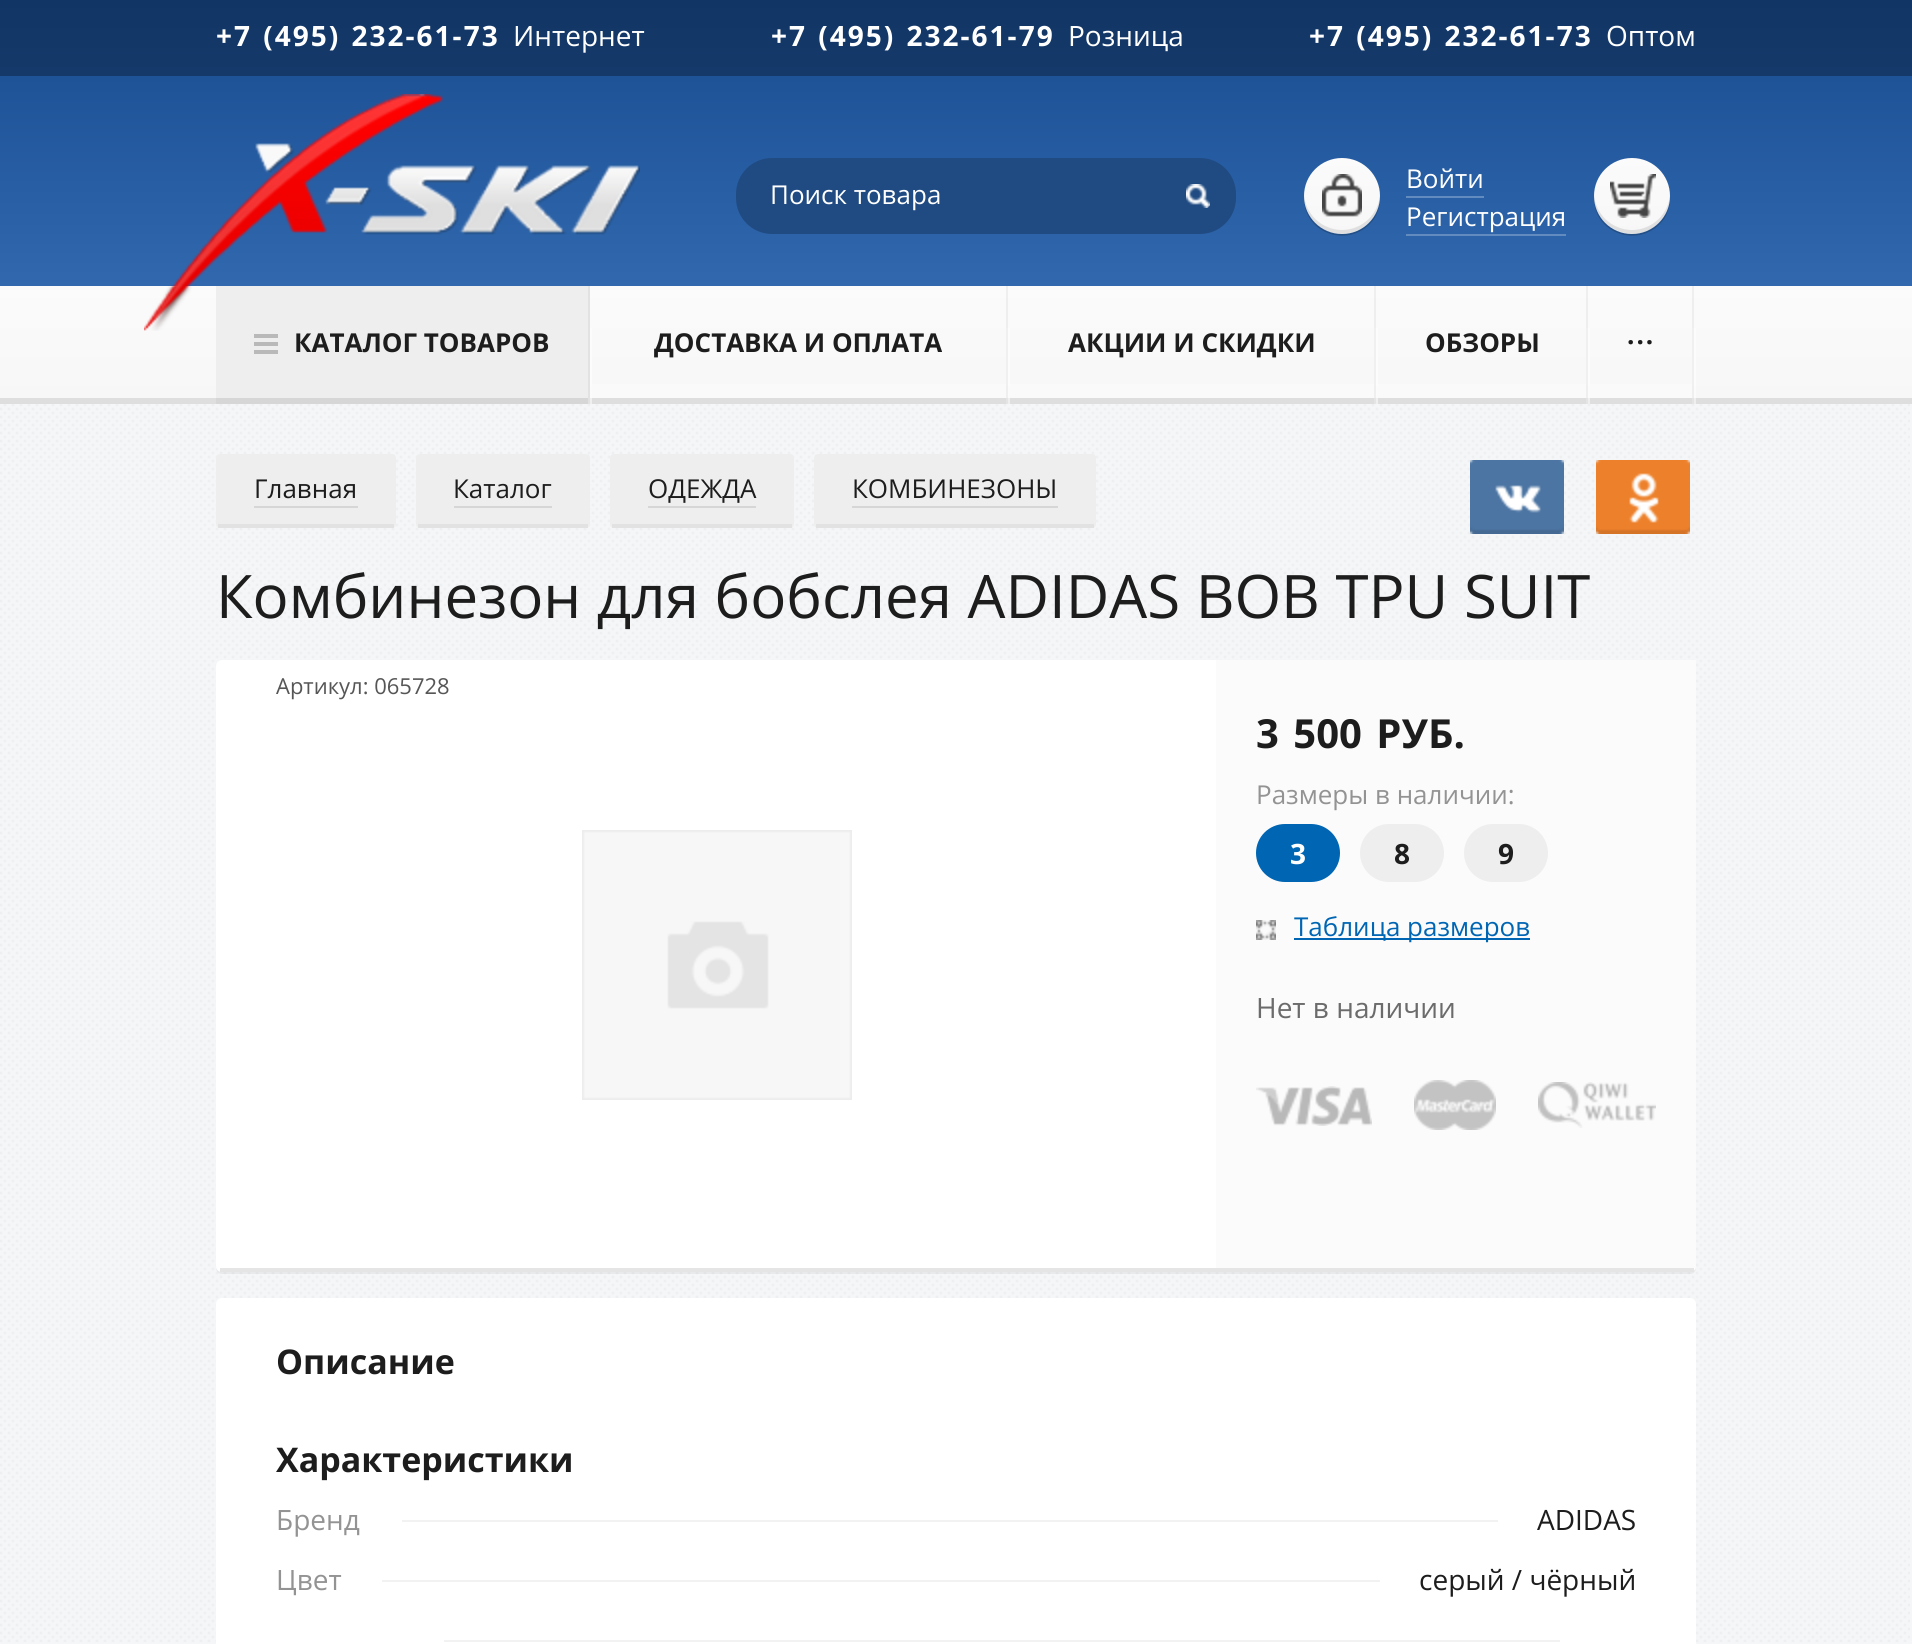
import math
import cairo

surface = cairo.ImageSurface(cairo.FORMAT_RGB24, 1912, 1644)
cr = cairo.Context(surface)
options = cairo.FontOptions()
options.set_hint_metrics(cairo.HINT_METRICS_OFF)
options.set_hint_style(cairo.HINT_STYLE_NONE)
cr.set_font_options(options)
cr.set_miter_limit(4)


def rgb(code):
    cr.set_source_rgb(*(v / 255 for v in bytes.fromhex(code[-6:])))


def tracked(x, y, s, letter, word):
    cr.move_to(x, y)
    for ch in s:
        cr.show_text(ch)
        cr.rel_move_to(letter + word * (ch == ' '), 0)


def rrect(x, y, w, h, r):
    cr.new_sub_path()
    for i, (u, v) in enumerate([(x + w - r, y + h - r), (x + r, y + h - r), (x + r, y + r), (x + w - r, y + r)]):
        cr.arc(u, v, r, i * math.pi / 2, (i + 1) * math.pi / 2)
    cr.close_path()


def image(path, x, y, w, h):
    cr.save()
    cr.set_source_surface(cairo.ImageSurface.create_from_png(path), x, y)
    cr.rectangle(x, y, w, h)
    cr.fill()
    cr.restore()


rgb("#f4f6f7")
cr.paint()
image("img/1.png", 0, 404, 1910, 1238)
gradient = cairo.LinearGradient(956, 0, 956, 76)
gradient.add_color_stop_rgba(0, 0.067, 0.208, 0.396, 1)
gradient.add_color_stop_rgba(1, 0.082, 0.227, 0.416, 1)
cr.set_source(gradient)
cr.rectangle(0, 0, 1912, 76)
cr.fill()
gradient = cairo.LinearGradient(956, 76, 956, 286)
gradient.add_color_stop_rgba(0, 0.118, 0.325, 0.596, 1)
gradient.add_color_stop_rgba(1, 0.192, 0.408, 0.682, 1)
cr.set_source(gradient)
cr.rectangle(0, 76, 1912, 210)
cr.fill()
rgb("#204b82")
rrect(736, 158, 500, 76, 36)
cr.fill()
image("img/2.png", 1186, 184, 24, 24)
cr.set_source_rgba(0, 0, 0.008, 0.2)
cr.new_path()
cr.move_to(1304, 197)
cr.curve_to(1303, 235, 1352, 250, 1374, 219)
cr.curve_to(1378, 213, 1380, 205, 1380, 197)
cr.curve_to(1379, 218, 1363, 234, 1342, 234)
cr.curve_to(1321, 234, 1305, 218, 1304, 197)
cr.close_path()
cr.fill()
gradient = cairo.LinearGradient(1342, 158, 1342, 234)
gradient.add_color_stop_rgba(0, 0.984, 0.984, 0.984, 1)
gradient.add_color_stop_rgba(1, 0.969, 0.969, 0.969, 1)
cr.set_source(gradient)
cr.arc(1342, 196, 38, 0, 2 * math.pi)
cr.fill()
cr.set_source_rgba(0, 0, 0.008, 0.1)
cr.new_path()
cr.move_to(1304, 194)
cr.curve_to(1304, 202, 1306, 210, 1310, 217)
cr.curve_to(1332, 249, 1382, 232, 1380, 194)
cr.curve_to(1379, 214, 1362, 230, 1342, 230)
cr.curve_to(1322, 230, 1305, 214, 1304, 194)
cr.close_path()
cr.fill()
image("img/3.png", 1322, 174, 40, 43)
rgb("#628bbf")
cr.rectangle(1406, 196, 78, 2)
cr.fill()
cr.rectangle(1406, 234, 160, 2)
cr.fill()
cr.set_source_rgba(0, 0, 0.008, 0.2)
cr.new_path()
cr.move_to(1594, 197)
cr.curve_to(1593, 235, 1642, 250, 1664, 219)
cr.curve_to(1668, 213, 1670, 205, 1670, 197)
cr.curve_to(1669, 218, 1653, 234, 1632, 234)
cr.curve_to(1611, 234, 1595, 218, 1594, 197)
cr.close_path()
cr.fill()
gradient = cairo.LinearGradient(1632, 158, 1632, 234)
gradient.add_color_stop_rgba(0, 0.984, 0.984, 0.984, 1)
gradient.add_color_stop_rgba(1, 0.969, 0.969, 0.969, 1)
cr.set_source(gradient)
cr.arc(1632, 196, 38, 0, 2 * math.pi)
cr.fill()
cr.set_source_rgba(0, 0, 0.008, 0.1)
cr.new_path()
cr.move_to(1594, 194)
cr.curve_to(1592, 232, 1642, 249, 1664, 217)
cr.curve_to(1668, 210, 1670, 202, 1670, 194)
cr.curve_to(1669, 214, 1652, 230, 1632, 230)
cr.curve_to(1612, 230, 1595, 214, 1594, 194)
cr.close_path()
cr.fill()
image("img/4.png", 1610, 174, 46, 44)
gradient = cairo.LinearGradient(956, 286, 956, 398)
gradient.add_color_stop_rgba(0, 0.984, 0.984, 0.984, 1)
gradient.add_color_stop_rgba(1, 0.969, 0.969, 0.969, 1)
cr.set_source(gradient)
cr.rectangle(0, 286, 1912, 112)
cr.fill()
rgb("#dedede")
cr.rectangle(0, 398, 1912, 6)
cr.fill()
image("img/5.png", 144, 94, 496, 237)
rgb("#eeeeee")
cr.rectangle(216, 286, 372, 112)
cr.fill()
rgb("#d6d6d6")
cr.rectangle(216, 398, 372, 6)
cr.fill()
rgb("#b9b9b9")
cr.rectangle(254, 334, 24, 4)
cr.rectangle(254, 342, 24, 4)
cr.rectangle(254, 350, 24, 4)
cr.fill()
cr.set_source_rgba(1, 1, 1, 0.5)
cr.rectangle(590, 328, 2, 76)
cr.fill()
rgb("#e2e2e2")
cr.rectangle(588, 286, 2, 118)
cr.fill()
rgb("#fafafa")
cr.rectangle(592, 384, 414, 14)
cr.fill()
cr.set_source_rgba(1, 1, 1, 0.5)
cr.rectangle(1006, 328, 4, 76)
cr.fill()
cr.set_source_rgba(0, 0, 0, 0.05)
cr.rectangle(1006, 286, 2, 118)
cr.fill()
rgb("#fafafa")
cr.rectangle(1010, 384, 364, 14)
cr.fill()
cr.set_source_rgba(1, 1, 1, 0.5)
cr.rectangle(1374, 328, 4, 76)
cr.fill()
cr.set_source_rgba(0, 0, 0, 0.05)
cr.rectangle(1374, 286, 2, 118)
cr.fill()
rgb("#fafafa")
cr.rectangle(1378, 384, 208, 14)
cr.fill()
cr.set_source_rgba(1, 1, 1, 0.5)
cr.rectangle(1586, 328, 4, 76)
cr.fill()
cr.set_source_rgba(0, 0, 0, 0.05)
cr.rectangle(1586, 286, 2, 118)
cr.fill()
rgb("#fafafa")
cr.rectangle(1590, 384, 102, 14)
cr.fill()
cr.set_source_rgba(1, 1, 1, 0.5)
cr.rectangle(1692, 328, 4, 76)
cr.fill()
cr.set_source_rgba(0, 0, 0, 0.05)
cr.rectangle(1692, 286, 2, 118)
cr.fill()
rgb("#eeeeee")
rrect(216, 454, 180, 74, 4)
cr.fill()
rgb("#e2e2e2")
cr.rectangle(218, 524, 176, 4)
cr.fill()
rgb("#d6d6d6")
cr.rectangle(254, 506, 104, 2)
cr.fill()
rgb("#eeeeee")
rrect(416, 454, 174, 74, 4)
cr.fill()
rgb("#e2e2e2")
cr.rectangle(418, 524, 170, 4)
cr.fill()
rgb("#d6d6d6")
cr.rectangle(454, 506, 98, 2)
cr.fill()
rgb("#eeeeee")
rrect(610, 454, 184, 74, 4)
cr.fill()
rgb("#e2e2e2")
cr.rectangle(612, 524, 180, 4)
cr.fill()
rgb("#d6d6d6")
cr.rectangle(648, 506, 108, 2)
cr.fill()
rgb("#eeeeee")
rrect(814, 454, 282, 74, 4)
cr.fill()
rgb("#e2e2e2")
cr.rectangle(816, 524, 278, 4)
cr.fill()
rgb("#d6d6d6")
cr.rectangle(852, 506, 206, 2)
cr.fill()
image("img/6.png", 1470, 460, 94, 74)
image("img/7.png", 1596, 460, 94, 74)
cr.set_source_rgba(0, 0, 0.008, 0.05)
cr.new_path()
cr.move_to(216, 1266)
cr.curve_to(216, 1270, 217, 1274, 222, 1274)
cr.line_to(1690, 1274)
cr.curve_to(1695, 1274, 1696, 1270, 1696, 1266)
cr.curve_to(1696, 1269, 1693, 1272, 1690, 1272)
cr.line_to(222, 1272)
cr.curve_to(219, 1272, 216, 1269, 216, 1266)
cr.close_path()
cr.fill()
rgb("#ffffff")
rrect(216, 660, 1480, 612, 6)
cr.fill()
rgb("#e5e5e5")
cr.rectangle(220, 1268, 1474, 4)
cr.fill()
image("img/8.png", 582, 830, 270, 270)
rgb("#fbfbfb")
cr.rectangle(1216, 660, 480, 608)
cr.fill()
rgb("#0065b3")
rrect(1256, 824, 84, 58, 29)
cr.fill()
rgb("#eeeeee")
rrect(1360, 824, 84, 58, 29)
cr.fill()
rrect(1464, 824, 84, 58, 29)
cr.fill()
image("img/9.png", 1256, 920, 20, 20)
rgb("#0065b3")
cr.rectangle(1294, 938, 236, 2)
cr.fill()
image("img/10.png", 1256, 1086, 116, 40)
image("img/11.png", 1414, 1080, 82, 50)
image("img/12.png", 1538, 1082, 118, 46)
rgb("#ffffff")
rrect(216, 1298, 1480, 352, 6)
cr.fill()
for x, y, w, h, color in [
    (402, 1520, 1096, 2, "#f2f2f2"),
    (382, 1580, 998, 2, "#f2f2f2"),
    (444, 1640, 1116, 2, "#f2f2f2"),
]:
    rgb(color)
    cr.rectangle(x, y, w, h)
    cr.fill()
cr.select_font_face("Open Sans", cairo.FONT_SLANT_NORMAL, cairo.FONT_WEIGHT_BOLD)
cr.set_font_size(28)
rgb("#ffffff")
tracked(216, 46, "+7 (495) 232-61-73", 2, 2)
cr.select_font_face("Open Sans")
cr.move_to(513, 46)
cr.show_text("Интернет")
cr.select_font_face("Open Sans", cairo.FONT_SLANT_NORMAL, cairo.FONT_WEIGHT_BOLD)
tracked(771, 46, "+7 (495) 232-61-79", 2, 2)
cr.select_font_face("Open Sans")
cr.move_to(1068, 46)
cr.show_text("Розница")
cr.select_font_face("Open Sans", cairo.FONT_SLANT_NORMAL, cairo.FONT_WEIGHT_BOLD)
tracked(1309, 46, "+7 (495) 232-61-73", 2, 2)
cr.select_font_face("Open Sans")
cr.move_to(1606, 46)
cr.show_text("Оптом")
cr.set_font_size(26)
for x, y, s in [
    (770, 204, "Поиск товара"),
    (1406, 188, "Войти"),
    (1406, 226, "Регистрация"),
]:
    cr.move_to(x, y)
    cr.show_text(s)
cr.select_font_face("Open Sans", cairo.FONT_SLANT_NORMAL, cairo.FONT_WEIGHT_BOLD)
rgb("#1d1d1d")
for x, y, s in [
    (294, 352, "КАТАЛОГ ТОВАРОВ"),
    (654, 352, "ДОСТАВКА И ОПЛАТА"),
    (1068, 352, "АКЦИИ И СКИДКИ"),
    (1425, 352, "ОБЗОРЫ"),
]:
    cr.move_to(x, y)
    cr.show_text(s)
tracked(1627, 344, "...", 2, 0)
cr.select_font_face("Open Sans")
for x, y, s in [
    (254, 498, "Главная"),
    (453, 498, "Каталог"),
    (648, 498, "ОДЕЖДА"),
    (852, 498, "КОМБИНЕЗОНЫ"),
]:
    cr.move_to(x, y)
    cr.show_text(s)
cr.set_font_size(60)
cr.move_to(216, 618)
cr.show_text("Комбинезон для бобслея ADIDAS BOB TPU SUIT")
cr.set_font_size(22)
rgb("#565656")
cr.move_to(276, 694)
cr.show_text("Артикул: 065728")
cr.select_font_face("Open Sans", cairo.FONT_SLANT_NORMAL, cairo.FONT_WEIGHT_BOLD)
cr.set_font_size(40)
rgb("#1d1d1d")
tracked(1256, 748, "3 500 РУБ.", 0, 4)
cr.select_font_face("Open Sans")
cr.set_font_size(26)
rgb("#939393")
cr.move_to(1256, 804)
cr.show_text("Размеры в наличии:")
cr.select_font_face("Open Sans", cairo.FONT_SLANT_NORMAL, cairo.FONT_WEIGHT_BOLD)
cr.set_font_size(28)
rgb("#ffffff")
cr.move_to(1290, 864)
cr.show_text("3")
rgb("#1d1d1d")
cr.move_to(1394, 864)
cr.show_text("8")
cr.move_to(1498, 864)
cr.show_text("9")
cr.select_font_face("Open Sans")
cr.set_font_size(26)
rgb("#0065b3")
cr.move_to(1294, 936)
cr.show_text("Таблица размеров")
cr.set_font_size(28)
rgb("#6b6b6b")
cr.move_to(1256, 1018)
cr.show_text("Нет в наличии")
cr.select_font_face("Open Sans", cairo.FONT_SLANT_NORMAL, cairo.FONT_WEIGHT_BOLD)
cr.set_font_size(34)
rgb("#1d1d1d")
cr.move_to(276, 1374)
cr.show_text("Описание")
cr.move_to(276, 1472)
cr.show_text("Характеристики")
cr.select_font_face("Open Sans")
cr.set_font_size(28)
rgb("#939393")
cr.move_to(276, 1530)
cr.show_text("Бренд")
rgb("#1d1d1d")
cr.move_to(1537, 1530)
cr.show_text("ADIDAS")
rgb("#939393")
cr.move_to(276, 1590)
cr.show_text("Цвет")
rgb("#1d1d1d")
cr.move_to(1419, 1590)
cr.show_text("серый / чёрный")
surface.write_to_png("page.png")
